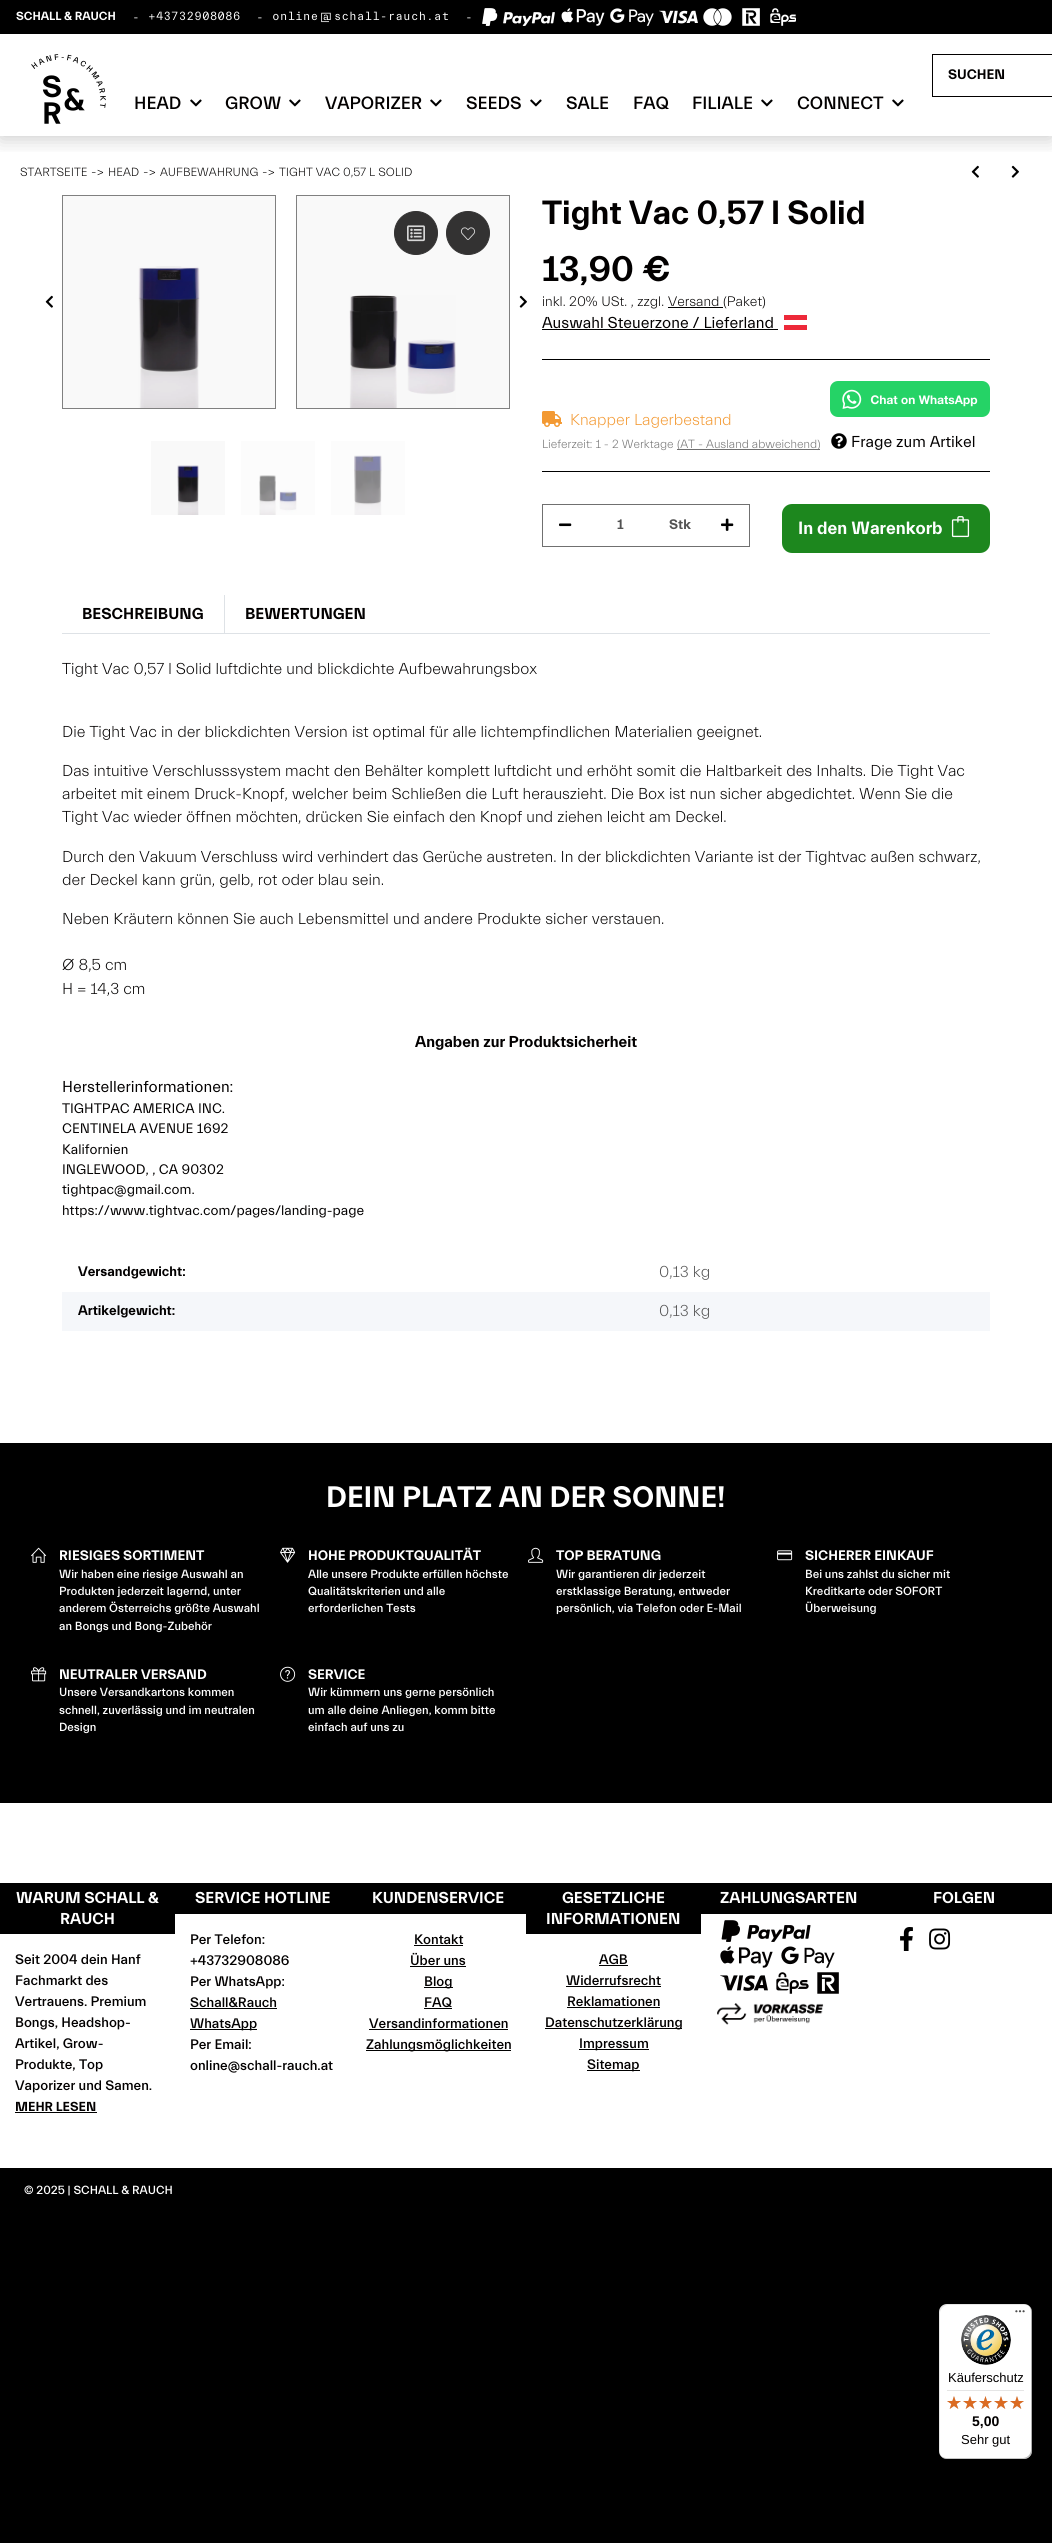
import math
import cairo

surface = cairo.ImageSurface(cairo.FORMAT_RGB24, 1052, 2543)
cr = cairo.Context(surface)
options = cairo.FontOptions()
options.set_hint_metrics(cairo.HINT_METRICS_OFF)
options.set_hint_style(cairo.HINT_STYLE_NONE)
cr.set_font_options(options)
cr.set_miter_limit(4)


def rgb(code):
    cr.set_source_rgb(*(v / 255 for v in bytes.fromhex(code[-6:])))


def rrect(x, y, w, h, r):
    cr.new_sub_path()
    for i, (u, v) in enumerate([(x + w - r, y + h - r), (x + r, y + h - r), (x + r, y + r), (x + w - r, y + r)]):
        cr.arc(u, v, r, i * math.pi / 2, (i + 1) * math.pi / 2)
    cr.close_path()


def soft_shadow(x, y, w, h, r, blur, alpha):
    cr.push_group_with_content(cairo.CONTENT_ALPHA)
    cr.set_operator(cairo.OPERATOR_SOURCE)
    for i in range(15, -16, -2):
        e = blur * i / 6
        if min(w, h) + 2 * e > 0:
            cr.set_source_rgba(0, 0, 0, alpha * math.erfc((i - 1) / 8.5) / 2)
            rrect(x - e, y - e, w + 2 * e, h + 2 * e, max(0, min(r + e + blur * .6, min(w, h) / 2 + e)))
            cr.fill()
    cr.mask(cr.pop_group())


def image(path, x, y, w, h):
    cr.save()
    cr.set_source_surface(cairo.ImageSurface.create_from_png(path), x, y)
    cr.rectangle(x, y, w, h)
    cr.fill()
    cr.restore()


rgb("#000000")
cr.paint()
for x, y, w, h, color in [
    (0, 34, 1052, 2134, "#ffffff"),
    (331, 441, 74, 74, "#fcfcfc"),
    (241, 441, 74, 74, "#fcfcfc"),
    (151, 441, 74, 74, "#f9f9f9"),
]:
    rgb(color)
    cr.rectangle(x, y, w, h)
    cr.fill()
image("img/10.png", 971, 165, 8, 13)
image("img/11.png", 1011, 165, 8, 13)
cr.save()
cr.rectangle(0, 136, 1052, 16)
cr.clip()
rgb("#000000")
soft_shadow(0, 37, 1052, 102, 0, 10, 0.2)
cr.restore()
image("img/1.png", 482, 8, 73, 18)
image("img/2.png", 561, 8, 44, 18)
image("img/3.png", 610, 8, 44, 18)
image("img/4.png", 659, 10, 39, 14)
image("img/5.png", 703, 8, 29, 18)
image("img/6.png", 742, 8, 18, 18)
image("img/7.png", 770, 8, 26, 18)
image("img/8.png", 31, 54, 75, 70)
for x, y, w, h, color in [
    (932, 54, 120, 1, "#020000"),
    (932, 96, 120, 1, "#020000"),
    (932, 54, 1, 43, "#020000"),
]:
    rgb(color)
    cr.rectangle(x, y, w, h)
    cr.fill()
image("img/9.png", 190, 99, 12, 8)
image("img/9.png", 289, 99, 12, 8)
image("img/9.png", 430, 99, 12, 8)
image("img/9.png", 530, 99, 12, 8)
image("img/9.png", 761, 99, 12, 8)
image("img/9.png", 892, 99, 12, 8)
image("img/10.png", 45, 295, 8, 13)
rgb("#f9f9f9")
cr.rectangle(62.5, 195.5, 213, 213)
cr.fill_preserve()
rgb("#808080")
cr.set_line_width(1)
cr.stroke()
image("img/12.png", 138, 266, 62, 142)
rgb("#f9f9f9")
cr.rectangle(296.5, 195.5, 213, 213)
cr.fill_preserve()
rgb("#808080")
cr.stroke()
image("img/13.png", 349, 295, 107, 113)
image("img/11.png", 519, 295, 8, 13)
rgb("#333232")
cr.arc(416, 233, 21.5, 0, 2 * math.pi)
cr.fill_preserve()
cr.stroke()
image("img/14.png", 407, 225, 18, 17)
cr.arc(468, 233, 21.5, 0, 2 * math.pi)
cr.fill_preserve()
cr.stroke()
image("img/15.png", 460, 227, 16, 13)
image("img/16.png", 177, 465, 22, 50)
image("img/17.png", 259, 475, 38, 40)
image("img/18.png", 354, 455, 28, 60)
for x, y, w, h, color in [
    (668, 307, 55, 1, "#000000"),
    (542, 329, 236, 1, "#000000"),
    (784, 315, 23, 15, "#ed2939"),
    (784, 320, 23, 5, "#ffffff"),
    (542, 359, 448, 1, "#000000"),
    (542, 471, 448, 1, "#000000"),
]:
    rgb(color)
    cr.rectangle(x, y, w, h)
    cr.fill()
image("img/19.png", 542, 411, 20, 16)
rgb("#707070")
cr.rectangle(677, 449, 143, 1)
cr.fill()
image("img/20.png", 830, 381, 160, 36)
image("img/21.png", 831, 433, 16, 16)
cr.rectangle(542.5, 504.5, 207, 42)
cr.stroke()
image("img/22.png", 559, 523, 13, 4)
image("img/23.png", 721, 518, 13, 13)
rgb("#1d871e")
rrect(782, 504, 208, 49, 10)
cr.fill()
image("img/24.png", 951, 516, 19, 22)
for x, y, w, h, color in [
    (62, 633, 928, 1, "#dee2e6"),
    (224, 595, 1, 38, "#dee2e6"),
    (62, 1292, 928, 39, "#f5f7fa"),
    (0, 1443, 1052, 360, "#000000"),
]:
    rgb(color)
    cr.rectangle(x, y, w, h)
    cr.fill()
image("img/25.png", 31, 1547, 16, 16)
image("img/26.png", 280, 1547, 16, 16)
image("img/27.png", 528, 1547, 16, 16)
image("img/28.png", 777, 1550, 16, 11)
image("img/29.png", 31, 1667, 16, 15)
image("img/30.png", 280, 1666, 16, 16)
for x, y, w, h, color in [
    (0, 1883, 175, 51, "#000000"),
    (15, 2112, 82, 1, "#000000"),
    (175, 1883, 351, 31, "#000000"),
    (190, 2008, 87, 1, "#000000"),
    (190, 2029, 67, 1, "#000000"),
    (414, 1945, 49, 1, "#000000"),
    (410, 1966, 56, 1, "#000000"),
    (424, 1987, 29, 1, "#000000"),
    (424, 2008, 28, 1, "#000000"),
    (369, 2029, 139, 1, "#000000"),
    (366, 2050, 145, 1, "#000000"),
    (526, 1883, 175, 51, "#000000"),
    (599, 1965, 29, 1, "#000000"),
    (566, 1986, 95, 1, "#000000"),
    (567, 2007, 93, 1, "#000000"),
    (545, 2028, 137, 1, "#000000"),
    (579, 2049, 70, 1, "#000000"),
    (587, 2070, 53, 1, "#000000"),
    (701, 1883, 351, 31, "#000000"),
]:
    rgb(color)
    cr.rectangle(x, y, w, h)
    cr.fill()
image("img/31.png", 721, 1920, 90, 22)
image("img/32.png", 720, 1946, 53, 22)
image("img/33.png", 781, 1946, 54, 22)
image("img/34.png", 720, 1975, 48, 16)
image("img/35.png", 776, 1972, 33, 22)
image("img/36.png", 817, 1972, 22, 22)
image("img/37.png", 717, 2003, 107, 22)
image("img/38.png", 900, 1927, 13, 24)
image("img/39.png", 929, 1928, 22, 22)
rgb("#ffffff")
rrect(939, 2304, 93, 155, 8)
cr.fill()
cr.set_source_rgba(0, 0, 0, 0.1)
cr.new_path()
cr.move_to(948, 2305)
cr.line_to(1025, 2305)
cr.curve_to(1027, 2305, 1029, 2306, 1031, 2308)
cr.curve_to(1029, 2306, 1027, 2304, 1024, 2304)
cr.line_to(947, 2304)
cr.curve_to(943, 2304, 939, 2308, 939, 2312)
cr.line_to(939, 2451)
cr.curve_to(939, 2454, 941, 2456, 943, 2458)
cr.curve_to(941, 2456, 940, 2454, 940, 2452)
cr.line_to(940, 2313)
cr.curve_to(940, 2309, 944, 2305, 948, 2305)
cr.close_path()
cr.fill()
cr.set_source_rgba(0, 0, 0, 0.2)
cr.new_path()
cr.move_to(940, 2455)
cr.curve_to(942, 2457, 944, 2459, 947, 2459)
cr.line_to(1024, 2459)
cr.curve_to(1028, 2459, 1032, 2455, 1032, 2451)
cr.line_to(1032, 2312)
cr.curve_to(1032, 2309, 1030, 2307, 1028, 2305)
cr.curve_to(1030, 2307, 1031, 2309, 1031, 2311)
cr.line_to(1031, 2450)
cr.curve_to(1031, 2454, 1027, 2458, 1023, 2458)
cr.line_to(946, 2458)
cr.curve_to(944, 2458, 942, 2457, 940, 2455)
cr.close_path()
cr.fill()
cr.set_source_rgba(0.196, 0.196, 0.196, 0.2)
cr.new_path()
cr.move_to(941, 2456)
cr.curve_to(942, 2458, 945, 2459, 947, 2459)
cr.line_to(1024, 2459)
cr.curve_to(1028, 2459, 1032, 2455, 1032, 2451)
cr.line_to(1032, 2312)
cr.curve_to(1032, 2310, 1031, 2307, 1029, 2306)
cr.curve_to(1030, 2307, 1031, 2309, 1031, 2311)
cr.line_to(1031, 2450)
cr.curve_to(1031, 2455, 1028, 2458, 1023, 2458)
cr.line_to(946, 2458)
cr.curve_to(944, 2458, 942, 2457, 941, 2456)
cr.close_path()
cr.fill()
image("img/40.png", 1015, 2310, 10, 3)
cr.set_source_rgba(1, 1, 1, 0.3)
cr.new_path()
cr.move_to(941, 2456)
cr.curve_to(942, 2458, 945, 2459, 947, 2459)
cr.line_to(1024, 2459)
cr.curve_to(1028, 2459, 1032, 2455, 1032, 2451)
cr.line_to(1032, 2450)
cr.curve_to(1032, 2455, 1028, 2458, 1024, 2458)
cr.line_to(946, 2458)
cr.curve_to(944, 2458, 942, 2457, 941, 2456)
cr.close_path()
cr.fill()
image("img/41.png", 961, 2315, 50, 50)
rgb("#e5e5e5")
cr.rectangle(947, 2390, 77, 1)
cr.fill()
image("img/42.png", 947, 2396, 14, 13)
image("img/42.png", 963, 2396, 14, 13)
image("img/43.png", 979, 2396, 13, 13)
image("img/42.png", 994, 2396, 14, 13)
image("img/42.png", 1010, 2396, 14, 13)
image("img/44.png", 947, 2396, 14, 13)
image("img/44.png", 963, 2396, 14, 13)
image("img/45.png", 979, 2396, 13, 13)
image("img/44.png", 994, 2396, 14, 13)
image("img/44.png", 1010, 2396, 14, 13)
cr.select_font_face("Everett", cairo.FONT_SLANT_NORMAL, cairo.FONT_WEIGHT_BOLD)
cr.set_font_size(12)
rgb("#ffffff")
cr.move_to(16, 20)
cr.show_text("SCHALL & RAUCH")
cr.select_font_face("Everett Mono")
for x, y, s in [
    (132, 21, "-"),
    (148, 20, "+43732908086"),
    (256, 21, "-"),
    (272, 20, "online@schall-rauch.at"),
    (465, 21, "-"),
]:
    cr.move_to(x, y)
    cr.show_text(s)
cr.select_font_face("Everett", cairo.FONT_SLANT_NORMAL, cairo.FONT_WEIGHT_BOLD)
cr.set_font_size(14)
rgb("#020000")
cr.move_to(948, 79)
cr.show_text("SUCHEN")
cr.select_font_face("Everett Medium")
cr.set_font_size(18)
for x, y, s in [
    (134, 109, "HEAD"),
    (225, 109, "GROW"),
    (325, 109, "VAPORIZER"),
    (466, 109, "SEEDS"),
    (566, 109, "SALE"),
    (633, 109, "FAQ"),
    (692, 109, "FILIALE"),
    (797, 109, "CONNECT"),
]:
    cr.move_to(x, y)
    cr.show_text(s)
cr.select_font_face("Everett Light")
cr.set_font_size(12)
cr.move_to(20, 176)
cr.show_text("STARTSEITE")
cr.set_font_size(13)
cr.move_to(91, 176)
cr.show_text("->")
cr.set_font_size(12)
cr.move_to(108, 176)
cr.show_text("HEAD")
cr.set_font_size(13)
cr.move_to(143, 176)
cr.show_text("->")
cr.set_font_size(12)
cr.move_to(160, 176)
cr.show_text("AUFBEWAHRUNG")
cr.set_font_size(13)
cr.move_to(262, 176)
cr.show_text("->")
cr.set_font_size(12)
cr.move_to(279, 176)
cr.show_text("TIGHT VAC 0,57 L SOLID")
cr.select_font_face("Everett", cairo.FONT_SLANT_NORMAL, cairo.FONT_WEIGHT_BOLD)
cr.set_font_size(34)
cr.move_to(542, 224)
cr.show_text("Tight Vac 0,57 l Solid")
cr.set_font_size(36)
cr.move_to(542, 281)
cr.show_text("13,90 €")
cr.select_font_face("Everett Light")
cr.set_font_size(14)
for x, y, s in [
    (542, 306, "inkl. 20% USt. , zzgl."),
    (668, 306, "Versand"),
    (723, 306, "(Paket)"),
]:
    cr.move_to(x, y)
    cr.show_text(s)
cr.select_font_face("Everett")
cr.set_font_size(16)
cr.move_to(542, 328)
cr.show_text("Auswahl Steuerzone / Lieferland")
cr.select_font_face("Everett Light")
rgb("#f39932")
cr.move_to(570, 425)
cr.show_text("Knapper Lagerbestand")
cr.set_font_size(12)
rgb("#707070")
cr.move_to(542, 448)
cr.show_text("Lieferzeit: 1 - 2 Werktage")
cr.move_to(677, 448)
cr.show_text("(AT - Ausland abweichend)")
cr.select_font_face("Everett")
cr.set_font_size(16)
rgb("#020000")
cr.move_to(851, 447)
cr.show_text("Frage zum Artikel")
cr.select_font_face("Everett", cairo.FONT_SLANT_NORMAL, cairo.FONT_WEIGHT_BOLD)
cr.set_font_size(14)
rgb("#525252")
cr.move_to(617, 529)
cr.show_text("1")
cr.move_to(669, 529)
cr.show_text("Stk")
cr.set_font_size(18)
rgb("#ffffff")
cr.move_to(798, 534)
cr.show_text("In den Warenkorb")
cr.set_font_size(16)
rgb("#020000")
cr.move_to(82, 619)
cr.show_text("BESCHREIBUNG")
cr.move_to(245, 619)
cr.show_text("BEWERTUNGEN")
cr.select_font_face("Everett Light")
for x, y, s in [
    (62, 674, "Tight Vac 0,57 l Solid luftdichte und blickdichte Aufbewahrungsbox"),
    (62, 737, "Die Tight Vac in der blickdichten Version ist optimal für alle lichtempfindlichen Materialien geeignet."),
    (62, 776, "Das intuitive Verschlusssystem macht den Behälter komplett luftdicht und erhöht somit die Haltbarkeit des Inhalts. Die Tight Vac"),
    (62, 799, "arbeitet mit einem Druck-Knopf, welcher beim Schließen die Luft herauszieht. Die Box ist nun sicher abgedichtet. Wenn Sie die"),
    (62, 822, "Tight Vac wieder öffnen möchten, drücken Sie einfach den Knopf und ziehen leicht am Deckel."),
    (62, 862, "Durch den Vakuum Verschluss wird verhindert das Gerüche austreten. In der blickdichten Variante ist der Tightvac außen schwarz,"),
    (62, 885, "der Deckel kann grün, gelb, rot oder blau sein."),
    (62, 924, "Neben Kräutern können Sie auch Lebensmittel und andere Produkte sicher verstauen."),
    (62, 970, "Ø 8,5 cm"),
    (62, 994, "H = 14,3 cm"),
]:
    cr.move_to(x, y)
    cr.show_text(s)
cr.select_font_face("Everett", cairo.FONT_SLANT_NORMAL, cairo.FONT_WEIGHT_BOLD)
cr.move_to(415, 1047)
cr.show_text("Angaben zur Produktsicherheit")
cr.select_font_face("Everett")
cr.move_to(62, 1092)
cr.show_text("Herstellerinformationen:")
cr.set_font_size(14)
for x, y, s in [
    (62, 1113, "TIGHTPAC AMERICA INC."),
    (62, 1133, "CENTINELA AVENUE 1692"),
    (62, 1154, "Kalifornien"),
    (62, 1174, "INGLEWOOD, , CA 90302"),
    (62, 1194, "tightpac@gmail.com."),
    (62, 1215, "https://www.tightvac.com/pages/landing-page"),
]:
    cr.move_to(x, y)
    cr.show_text(s)
cr.select_font_face("Everett", cairo.FONT_SLANT_NORMAL, cairo.FONT_WEIGHT_BOLD)
cr.move_to(78, 1276)
cr.show_text("Versandgewicht:")
cr.select_font_face("Everett Light")
cr.set_font_size(16)
rgb("#525252")
cr.move_to(659, 1277)
cr.show_text("0,13 kg")
cr.select_font_face("Everett", cairo.FONT_SLANT_NORMAL, cairo.FONT_WEIGHT_BOLD)
cr.set_font_size(14)
rgb("#020000")
cr.move_to(78, 1315)
cr.show_text("Artikelgewicht:")
cr.select_font_face("Everett Light")
cr.set_font_size(16)
rgb("#525252")
cr.move_to(659, 1316)
cr.show_text("0,13 kg")
cr.select_font_face("Everett", cairo.FONT_SLANT_NORMAL, cairo.FONT_WEIGHT_BOLD)
cr.set_font_size(30)
rgb("#ffffff")
cr.move_to(326, 1507)
cr.show_text("DEIN PLATZ AN DER SONNE!")
cr.set_font_size(14)
cr.move_to(59, 1560)
cr.show_text("RIESIGES SORTIMENT")
cr.select_font_face("Everett Medium")
cr.set_font_size(12)
for x, y, s in [
    (59, 1578, "Wir haben eine riesige Auswahl an"),
    (59, 1595, "Produkten jederzeit lagernd, unter"),
    (59, 1612, "anderem Österreichs größte Auswahl"),
    (59, 1630, "an Bongs und Bong-Zubehör"),
]:
    cr.move_to(x, y)
    cr.show_text(s)
cr.select_font_face("Everett", cairo.FONT_SLANT_NORMAL, cairo.FONT_WEIGHT_BOLD)
cr.set_font_size(14)
cr.move_to(308, 1560)
cr.show_text("HOHE PRODUKTQUALITÄT")
cr.select_font_face("Everett Medium")
cr.set_font_size(12)
for x, y, s in [
    (308, 1578, "Alle unsere Produkte erfüllen höchste"),
    (308, 1595, "Qualitätskriterien und alle"),
    (308, 1612, "erforderlichen Tests"),
]:
    cr.move_to(x, y)
    cr.show_text(s)
cr.select_font_face("Everett", cairo.FONT_SLANT_NORMAL, cairo.FONT_WEIGHT_BOLD)
cr.set_font_size(14)
cr.move_to(556, 1560)
cr.show_text("TOP BERATUNG")
cr.select_font_face("Everett Medium")
cr.set_font_size(12)
for x, y, s in [
    (556, 1578, "Wir garantieren dir jederzeit"),
    (556, 1595, "erstklassige Beratung, entweder"),
    (556, 1612, "persönlich, via Telefon oder E-Mail"),
]:
    cr.move_to(x, y)
    cr.show_text(s)
cr.select_font_face("Everett", cairo.FONT_SLANT_NORMAL, cairo.FONT_WEIGHT_BOLD)
cr.set_font_size(14)
cr.move_to(805, 1560)
cr.show_text("SICHERER EINKAUF")
cr.select_font_face("Everett Medium")
cr.set_font_size(12)
for x, y, s in [
    (805, 1578, "Bei uns zahlst du sicher mit"),
    (805, 1595, "Kreditkarte oder SOFORT"),
    (805, 1612, "Überweisung"),
]:
    cr.move_to(x, y)
    cr.show_text(s)
cr.select_font_face("Everett", cairo.FONT_SLANT_NORMAL, cairo.FONT_WEIGHT_BOLD)
cr.set_font_size(14)
cr.move_to(59, 1679)
cr.show_text("NEUTRALER VERSAND")
cr.select_font_face("Everett Medium")
cr.set_font_size(12)
for x, y, s in [
    (59, 1696, "Unsere Versandkartons kommen"),
    (59, 1714, "schnell, zuverlässig und im neutralen"),
    (59, 1731, "Design"),
]:
    cr.move_to(x, y)
    cr.show_text(s)
cr.select_font_face("Everett", cairo.FONT_SLANT_NORMAL, cairo.FONT_WEIGHT_BOLD)
cr.set_font_size(14)
cr.move_to(308, 1679)
cr.show_text("SERVICE")
cr.select_font_face("Everett Medium")
cr.set_font_size(12)
for x, y, s in [
    (308, 1696, "Wir kümmern uns gerne persönlich"),
    (308, 1714, "um alle deine Anliegen, komm bitte"),
    (308, 1731, "einfach auf uns zu"),
]:
    cr.move_to(x, y)
    cr.show_text(s)
cr.select_font_face("Everett", cairo.FONT_SLANT_NORMAL, cairo.FONT_WEIGHT_BOLD)
cr.set_font_size(16)
cr.move_to(16, 1903)
cr.show_text("WARUM SCHALL &")
cr.move_to(60, 1924)
cr.show_text("RAUCH")
cr.select_font_face("Everett Medium")
cr.set_font_size(14)
rgb("#020000")
for x, y, s in [
    (15, 1964, "Seit 2004 dein Hanf"),
    (15, 1985, "Fachmarkt des"),
    (15, 2006, "Vertrauens. Premium"),
    (15, 2027, "Bongs, Headshop-"),
    (15, 2048, "Artikel, Grow-"),
    (15, 2069, "Produkte, Top"),
    (15, 2090, "Vaporizer und Samen."),
]:
    cr.move_to(x, y)
    cr.show_text(s)
cr.select_font_face("Everett", cairo.FONT_SLANT_NORMAL, cairo.FONT_WEIGHT_BOLD)
cr.set_font_size(13.25)
cr.move_to(15, 2111)
cr.show_text("MEHR LESEN")
cr.set_font_size(16)
rgb("#ffffff")
cr.move_to(195, 1903)
cr.show_text("SERVICE HOTLINE")
cr.select_font_face("Everett Medium")
cr.set_font_size(14)
rgb("#020000")
for x, y, s in [
    (190, 1944, "Per Telefon:"),
    (190, 1965, "+43732908086"),
    (190, 1986, "Per WhatsApp:"),
    (190, 2007, "Schall&Rauch"),
    (190, 2028, "WhatsApp"),
    (190, 2049, "Per Email:"),
    (190, 2070, "online@schall-rauch.at"),
]:
    cr.move_to(x, y)
    cr.show_text(s)
cr.select_font_face("Everett", cairo.FONT_SLANT_NORMAL, cairo.FONT_WEIGHT_BOLD)
cr.set_font_size(16)
rgb("#ffffff")
cr.move_to(372, 1903)
cr.show_text("KUNDENSERVICE")
cr.select_font_face("Everett Medium")
cr.set_font_size(14)
rgb("#020000")
for x, y, s in [
    (414, 1944, "Kontakt"),
    (410, 1965, "Über uns"),
    (424, 1986, "Blog"),
    (424, 2007, "FAQ"),
    (369, 2028, "Versandinformationen"),
    (366, 2049, "Zahlungsmöglichkeiten"),
]:
    cr.move_to(x, y)
    cr.show_text(s)
cr.select_font_face("Everett", cairo.FONT_SLANT_NORMAL, cairo.FONT_WEIGHT_BOLD)
cr.set_font_size(16)
rgb("#ffffff")
cr.move_to(562, 1903)
cr.show_text("GESETZLICHE")
cr.move_to(546, 1924)
cr.show_text("INFORMATIONEN")
cr.select_font_face("Everett Medium")
cr.set_font_size(14)
rgb("#020000")
for x, y, s in [
    (599, 1964, "AGB"),
    (566, 1985, "Widerrufsrecht"),
    (567, 2006, "Reklamationen"),
    (545, 2027, "Datenschutzerklärung"),
    (579, 2048, "Impressum"),
    (587, 2069, "Sitemap"),
]:
    cr.move_to(x, y)
    cr.show_text(s)
cr.select_font_face("Everett", cairo.FONT_SLANT_NORMAL, cairo.FONT_WEIGHT_BOLD)
cr.set_font_size(16)
rgb("#ffffff")
cr.move_to(720, 1903)
cr.show_text("ZAHLUNGSARTEN")
cr.move_to(933, 1903)
cr.show_text("FOLGEN")
cr.select_font_face("Everett Medium")
cr.set_font_size(12)
cr.move_to(24, 2194)
cr.show_text("© 2025 | SCHALL & RAUCH")
cr.select_font_face("Liberation Sans")
cr.set_font_size(13)
rgb("#020000")
cr.move_to(948, 2382)
cr.show_text("Käuferschutz")
cr.select_font_face("Liberation Sans", cairo.FONT_SLANT_NORMAL, cairo.FONT_WEIGHT_BOLD)
cr.set_font_size(14)
cr.move_to(972, 2426)
cr.show_text("5,00")
cr.select_font_face("Liberation Sans")
cr.set_font_size(13)
cr.move_to(961, 2444)
cr.show_text("Sehr gut")
surface.write_to_png("page.png")
